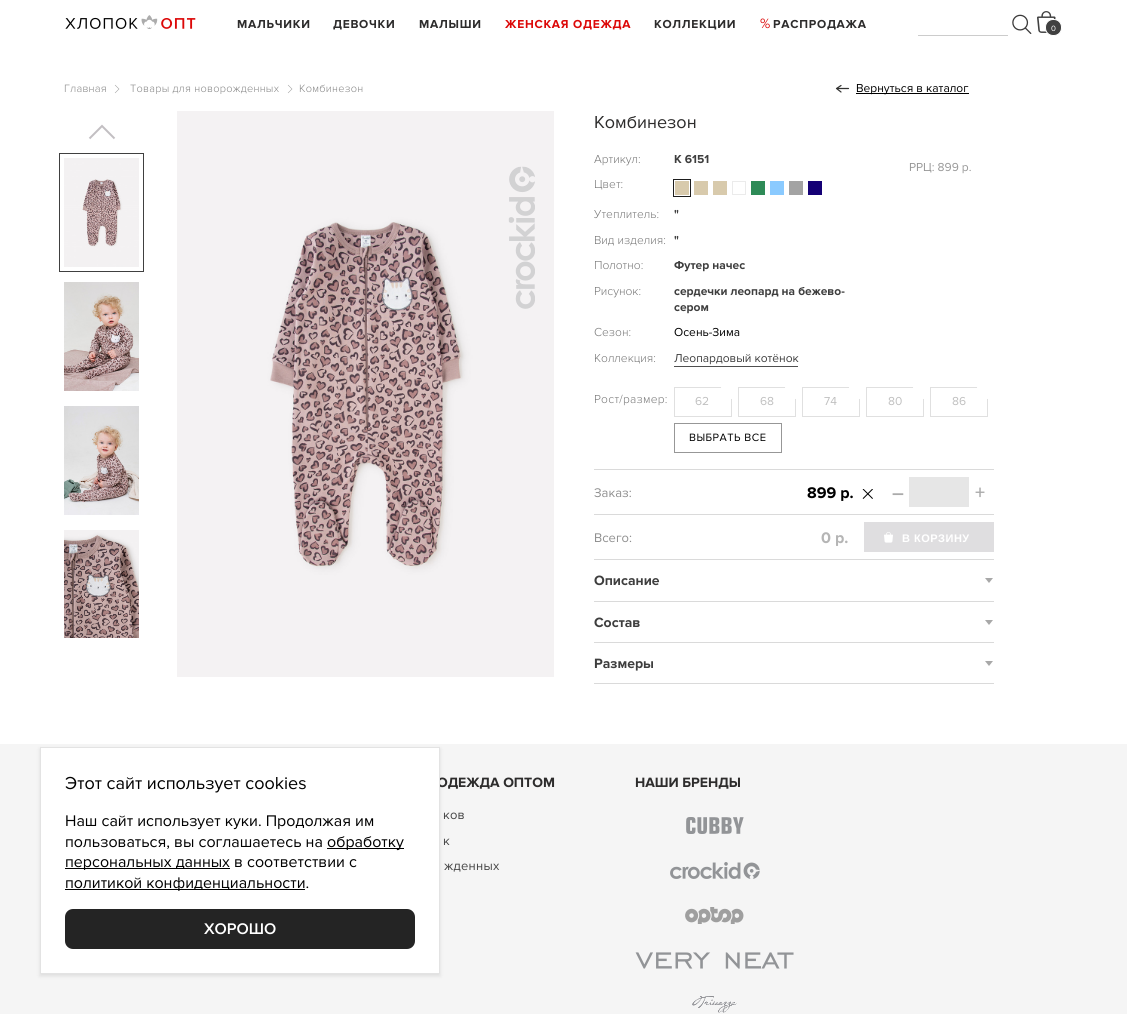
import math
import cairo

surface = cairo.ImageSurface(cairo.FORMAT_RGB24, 1127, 1014)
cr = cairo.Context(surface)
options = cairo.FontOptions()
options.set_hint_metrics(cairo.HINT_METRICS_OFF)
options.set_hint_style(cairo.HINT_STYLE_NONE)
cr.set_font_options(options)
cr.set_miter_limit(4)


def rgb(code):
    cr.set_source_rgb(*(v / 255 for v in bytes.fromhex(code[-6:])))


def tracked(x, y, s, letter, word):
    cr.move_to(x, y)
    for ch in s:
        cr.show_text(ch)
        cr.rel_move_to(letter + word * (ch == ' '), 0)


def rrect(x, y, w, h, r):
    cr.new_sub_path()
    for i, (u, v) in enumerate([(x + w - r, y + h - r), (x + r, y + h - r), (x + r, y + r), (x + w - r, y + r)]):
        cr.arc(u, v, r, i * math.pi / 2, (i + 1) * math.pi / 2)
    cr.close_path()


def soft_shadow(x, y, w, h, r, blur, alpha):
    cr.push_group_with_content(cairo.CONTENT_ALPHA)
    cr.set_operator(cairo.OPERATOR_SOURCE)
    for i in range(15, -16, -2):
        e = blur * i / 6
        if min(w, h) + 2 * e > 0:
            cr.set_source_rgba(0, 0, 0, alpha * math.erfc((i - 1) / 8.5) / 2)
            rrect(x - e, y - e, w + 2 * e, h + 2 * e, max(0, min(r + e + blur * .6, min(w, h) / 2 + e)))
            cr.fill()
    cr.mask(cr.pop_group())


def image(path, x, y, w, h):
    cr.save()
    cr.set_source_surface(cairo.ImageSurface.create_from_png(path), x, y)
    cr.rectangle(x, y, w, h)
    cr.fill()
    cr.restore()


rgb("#ffffff")
cr.paint()
image("img/1.png", 65, 15, 131, 14)
image("img/2.png", 1012, 14, 20, 20)
rgb("#cccccc")
cr.rectangle(918, 35, 90, 1)
cr.fill()
image("img/3.png", 1037, 11, 19, 22)
rgb("#404040")
rrect(1045.5, 19.5, 16, 16, 7.5)
cr.fill_preserve()
rgb("#ffffff")
cr.set_line_width(1)
cr.stroke()
cr.new_path()
cr.move_to(115, 85)
cr.line_to(119, 89)
cr.line_to(115, 93)
rgb("#979797")
cr.set_line_width(0.5)
cr.stroke()
cr.new_path()
cr.move_to(288, 85)
cr.line_to(292, 89)
cr.line_to(288, 93)
cr.stroke()
cr.new_path()
cr.move_to(837, 88.5)
cr.line_to(848.5, 88.5)
cr.move_to(841, 85.5)
cr.line_to(836.5, 88.5)
cr.line_to(841, 92)
rgb("#323231")
cr.set_line_width(1.2)
cr.set_line_cap(cairo.LINE_CAP_ROUND)
cr.set_line_join(cairo.LINE_JOIN_ROUND)
cr.stroke()
rgb("#000000")
cr.rectangle(856, 93, 113, 1)
cr.fill()
cr.new_path()
cr.move_to(89.5, 138.5)
cr.line_to(102, 126)
cr.line_to(114.5, 138.5)
rgb("#c2bfc2")
cr.set_line_width(2)
cr.set_line_cap(cairo.LINE_CAP_BUTT)
cr.set_line_join(cairo.LINE_JOIN_MITER)
cr.stroke()
cr.rectangle(59.5, 153.5, 84, 118)
rgb("#404040")
cr.set_line_width(1)
cr.stroke()
image("img/4.png", 64, 158, 75, 109)
image("img/5.png", 64, 282, 75, 109)
image("img/6.png", 64, 406, 75, 109)
image("img/7.png", 64, 530, 75, 108)
image("img/8.png", 177, 111, 377, 566)
image("img/9.png", 508, 166, 27, 143)
cr.rectangle(674, 180, 16, 16)
rgb("#1d1d1d")
cr.set_line_width(2)
cr.stroke()
cr.rectangle(674.5, 180.5, 15, 15)
rgb("#ffffff")
cr.set_line_width(1)
cr.stroke()
for x, y, w, h, color in [
    (675, 181, 14, 14, "#d8caac"),
    (694, 181, 14, 14, "#d8caac"),
    (713, 181, 14, 14, "#d8caac"),
]:
    rgb(color)
    cr.rectangle(x, y, w, h)
    cr.fill()
cr.rectangle(732.5, 181.5, 13, 13)
rgb("#ebebeb")
cr.stroke()
for x, y, w, h, color in [
    (751, 181, 14, 14, "#2e8b57"),
    (770, 181, 14, 14, "#8acaff"),
    (789, 181, 14, 14, "#a3a3a3"),
    (808, 181, 14, 14, "#140075"),
    (674, 366, 124, 1, "#4f4f4f"),
]:
    rgb(color)
    cr.rectangle(x, y, w, h)
    cr.fill()
cr.rectangle(674.5, 387.5, 57, 29)
rgb("#e0e0e0")
cr.stroke()
rgb("#ffffff")
cr.arc(732, 388, 11, 0, 2 * math.pi)
cr.fill()
cr.rectangle(738.5, 387.5, 57, 29)
rgb("#e0e0e0")
cr.stroke()
rgb("#ffffff")
cr.arc(796, 388, 11, 0, 2 * math.pi)
cr.fill()
cr.rectangle(802.5, 387.5, 57, 29)
rgb("#e0e0e0")
cr.stroke()
rgb("#ffffff")
cr.arc(860, 388, 11, 0, 2 * math.pi)
cr.fill()
cr.rectangle(866.5, 387.5, 57, 29)
rgb("#e0e0e0")
cr.stroke()
rgb("#ffffff")
cr.arc(924, 388, 11, 0, 2 * math.pi)
cr.fill()
cr.rectangle(930.5, 387.5, 57, 29)
rgb("#e0e0e0")
cr.stroke()
rgb("#ffffff")
cr.arc(988, 388, 11, 0, 2 * math.pi)
cr.fill()
cr.rectangle(674.5, 423.5, 107, 29)
rgb("#979797")
cr.stroke()
rgb("#dadada")
cr.rectangle(594, 469, 400, 1)
cr.fill()
cr.rectangle(594, 514, 400, 1)
cr.fill()
image("img/10.png", 862, 489, 11, 10)
rgb("#e6e6e6")
cr.rectangle(909, 477, 60, 30)
cr.fill()
rgb("#dfdee0")
cr.rectangle(864, 522, 130, 30)
cr.fill()
image("img/11.png", 884, 532, 9, 11)
rgb("#dadada")
cr.rectangle(594, 559, 400, 1)
cr.fill()
cr.rectangle(594, 601, 400, 1)
cr.fill()
rgb("#a8a8a8")
cr.new_path()
cr.move_to(985, 578)
cr.line_to(993, 578)
cr.line_to(989, 583)
cr.close_path()
cr.fill()
rgb("#dadada")
cr.rectangle(594, 642, 400, 1)
cr.fill()
rgb("#a8a8a8")
cr.new_path()
cr.move_to(985, 620)
cr.line_to(993, 620)
cr.line_to(989, 625)
cr.close_path()
cr.fill()
rgb("#dadada")
cr.rectangle(594, 683, 400, 1)
cr.fill()
rgb("#a8a8a8")
cr.new_path()
cr.move_to(985, 661)
cr.line_to(993, 661)
cr.line_to(989, 666)
cr.close_path()
cr.fill()
rgb("#f5f5f5")
cr.rectangle(0, 744, 1127, 270)
cr.fill()
rgb("#000000")
soft_shadow(40, 749, 400, 227, 0, 2, 0.1)
image("img/12.png", 686, 817, 58, 17)
image("img/13.png", 670, 862, 90, 17)
image("img/14.png", 685, 907, 59, 17)
image("img/15.png", 635, 952, 159, 17)
image("img/16.png", 692, 996, 45, 17)
cr.select_font_face("Proxima Nova", cairo.FONT_SLANT_NORMAL, cairo.FONT_WEIGHT_BOLD)
cr.set_font_size(12)
rgb("#2d2c2c")
for x, y, s in [
    (237, 28, "МАЛЬЧИКИ"),
    (333, 28, "ДЕВОЧКИ"),
    (419, 28, "МАЛЫШИ"),
]:
    tracked(x, y, s, 0.75, 0)
rgb("#dc0808")
tracked(505, 28, "ЖЕНСКАЯ ОДЕЖДА", 0.75, 0)
rgb("#2d2c2c")
tracked(654, 28, "КОЛЛЕКЦИИ", 0.75, 0)
cr.select_font_face("Proxima Nova")
cr.set_font_size(14)
rgb("#dc0808")
cr.move_to(760, 28)
cr.show_text("%")
cr.select_font_face("Proxima Nova", cairo.FONT_SLANT_NORMAL, cairo.FONT_WEIGHT_BOLD)
cr.set_font_size(12)
rgb("#2d2c2c")
tracked(773, 28, "РАСПРОДАЖА", 0.75, 0)
cr.select_font_face("Proxima Nova")
cr.set_font_size(8)
rgb("#ffffff")
tracked(1051, 31, "0", 0.25, 0)
cr.select_font_face("Proxima Nova Light")
cr.set_font_size(11)
rgb("#858585")
for x, y, s in [
    (64, 92, "Главная"),
    (130, 92, "Товары для новорожденных"),
    (299, 92, "Комбинезон"),
]:
    tracked(x, y, s, 0.25, 0)
cr.select_font_face("Proxima Nova")
cr.set_font_size(12)
rgb("#000000")
cr.move_to(856, 92)
cr.show_text("Вернуться в каталог")
cr.set_font_size(18)
rgb("#2d2c2c")
cr.move_to(594, 128)
cr.show_text("Комбинезон")
cr.select_font_face("Proxima Nova Light")
cr.set_font_size(12)
rgb("#757575")
cr.move_to(594, 163)
cr.show_text("Артикул:")
cr.select_font_face("Proxima Nova", cairo.FONT_SLANT_NORMAL, cairo.FONT_WEIGHT_BOLD)
rgb("#3e3e3e")
cr.move_to(674, 163)
cr.show_text("К 6151")
cr.select_font_face("Proxima Nova Light")
rgb("#757575")
cr.move_to(594, 188)
cr.show_text("Цвет:")
cr.move_to(594, 218)
cr.show_text("Утеплитель:")
cr.select_font_face("Proxima Nova", cairo.FONT_SLANT_NORMAL, cairo.FONT_WEIGHT_BOLD)
rgb("#3e3e3e")
cr.move_to(674, 218)
cr.show_text("\"")
cr.select_font_face("Proxima Nova Light")
rgb("#757575")
cr.move_to(594, 244)
cr.show_text("Вид изделия:")
cr.select_font_face("Proxima Nova", cairo.FONT_SLANT_NORMAL, cairo.FONT_WEIGHT_BOLD)
rgb("#3e3e3e")
cr.move_to(674, 244)
cr.show_text("\"")
cr.select_font_face("Proxima Nova Light")
rgb("#757575")
cr.move_to(594, 269)
cr.show_text("Полотно:")
cr.select_font_face("Proxima Nova", cairo.FONT_SLANT_NORMAL, cairo.FONT_WEIGHT_BOLD)
rgb("#3e3e3e")
cr.move_to(674, 269)
cr.show_text("Футер начес")
cr.select_font_face("Proxima Nova Light")
rgb("#757575")
cr.move_to(594, 295)
cr.show_text("Рисунок:")
cr.select_font_face("Proxima Nova", cairo.FONT_SLANT_NORMAL, cairo.FONT_WEIGHT_BOLD)
rgb("#3e3e3e")
cr.move_to(674, 295)
cr.show_text("сердечки леопард на бежево-")
cr.move_to(674, 311)
cr.show_text("сером")
cr.select_font_face("Proxima Nova Light")
rgb("#757575")
cr.move_to(594, 336)
cr.show_text("Сезон:")
cr.select_font_face("Proxima Nova")
rgb("#000000")
cr.move_to(674, 336)
cr.show_text("Осень-Зима")
cr.select_font_face("Proxima Nova Light")
rgb("#757575")
cr.move_to(594, 362)
cr.show_text("Коллекция:")
cr.select_font_face("Proxima Nova")
rgb("#3e3e3e")
cr.move_to(674, 362)
cr.show_text("Леопардовый котёнок")
rgb("#979797")
cr.move_to(909, 171)
cr.show_text("РРЦ: 899 р.")
cr.select_font_face("Proxima Nova Light")
rgb("#757575")
tracked(594, 403, "Рост/размер:", 0.25, 0)
cr.select_font_face("Proxima Nova")
rgb("#c0c0c0")
for x, y, s in [
    (695, 405, "62"),
    (760, 405, "68"),
    (824, 405, "74"),
    (888, 405, "80"),
    (952, 405, "86"),
]:
    cr.move_to(x, y)
    cr.show_text(s)
cr.set_font_size(11)
rgb("#000000")
tracked(689, 441, "ВЫБРАТЬ ВСЕ", 0.5, 0)
cr.set_font_size(13)
rgb("#8f8f8f")
cr.move_to(594, 497)
cr.show_text("Заказ:")
cr.select_font_face("Proxima Nova", cairo.FONT_SLANT_NORMAL, cairo.FONT_WEIGHT_BOLD)
cr.set_font_size(16)
rgb("#000000")
cr.move_to(807, 498)
cr.show_text("899 р.")
cr.select_font_face("Proxima Nova SemiBold")
cr.set_font_size(20)
rgb("#ababab")
tracked(892, 499, "–", 1, 0)
tracked(975, 499, "+", 1, 0)
cr.select_font_face("Proxima Nova")
cr.set_font_size(13)
rgb("#8f8f8f")
cr.move_to(594, 542)
cr.show_text("Всего:")
cr.select_font_face("Proxima Nova", cairo.FONT_SLANT_NORMAL, cairo.FONT_WEIGHT_BOLD)
cr.set_font_size(16)
rgb("#b5b5b5")
cr.move_to(821, 543)
cr.show_text("0 р.")
cr.select_font_face("Liberation Sans", cairo.FONT_SLANT_NORMAL, cairo.FONT_WEIGHT_BOLD)
cr.set_font_size(11)
rgb("#ffffff")
tracked(902, 542, "В КОРЗИНУ", 0.5, 0)
cr.select_font_face("Proxima Nova", cairo.FONT_SLANT_NORMAL, cairo.FONT_WEIGHT_BOLD)
cr.set_font_size(14)
rgb("#3e3e3e")
for x, y, s in [
    (594, 585, "Описание"),
    (594, 627, "Состав"),
    (594, 668, "Размеры"),
]:
    cr.move_to(x, y)
    cr.show_text(s)
rgb("#2d2c2c")
cr.move_to(437, 787)
cr.show_text("ОДЕЖДА ОПТОМ")
rgb("#ffffff")
cr.rectangle(40.5, 747.5, 399, 226)
cr.fill_preserve()
rgb("#e3e3e3")
cr.stroke()
rgb("#242424")
rrect(65, 909, 350, 40, 8)
cr.fill()
cr.select_font_face("Proxima Nova SemiBold")
cr.set_font_size(16)
rgb("#ffffff")
cr.move_to(204, 934)
cr.show_text("ХОРОШО")
rgb("#000000")
cr.rectangle(65, 889, 240, 1)
cr.fill()
cr.select_font_face("Proxima Nova")
cr.move_to(65, 888)
cr.show_text("политикой конфиденциальности.")
cr.rectangle(65, 868, 165, 1)
cr.fill()
cr.move_to(65, 867)
cr.show_text("персональных данных в соответствии с")
cr.rectangle(327, 848, 77, 1)
cr.fill()
for x, y, s in [
    (327, 847, "обработку"),
    (65, 847, "пользоваться, вы соглашаетесь на"),
    (65, 826, "Наш сайт использует куки. Продолжая им"),
]:
    cr.move_to(x, y)
    cr.show_text(s)
cr.set_font_size(18)
cr.move_to(65, 789)
cr.show_text("Этот сайт использует cookies")
cr.set_font_size(13)
rgb("#454545")
for x, y, s in [
    (443, 819, "ков"),
    (443, 845, "к"),
    (444, 870, "жденных"),
]:
    tracked(x, y, s, 0.25, 0)
cr.select_font_face("Proxima Nova", cairo.FONT_SLANT_NORMAL, cairo.FONT_WEIGHT_BOLD)
cr.set_font_size(14)
rgb("#2d2c2c")
cr.move_to(635, 787)
cr.show_text("НАШИ БРЕНДЫ")
surface.write_to_png("page.png")
